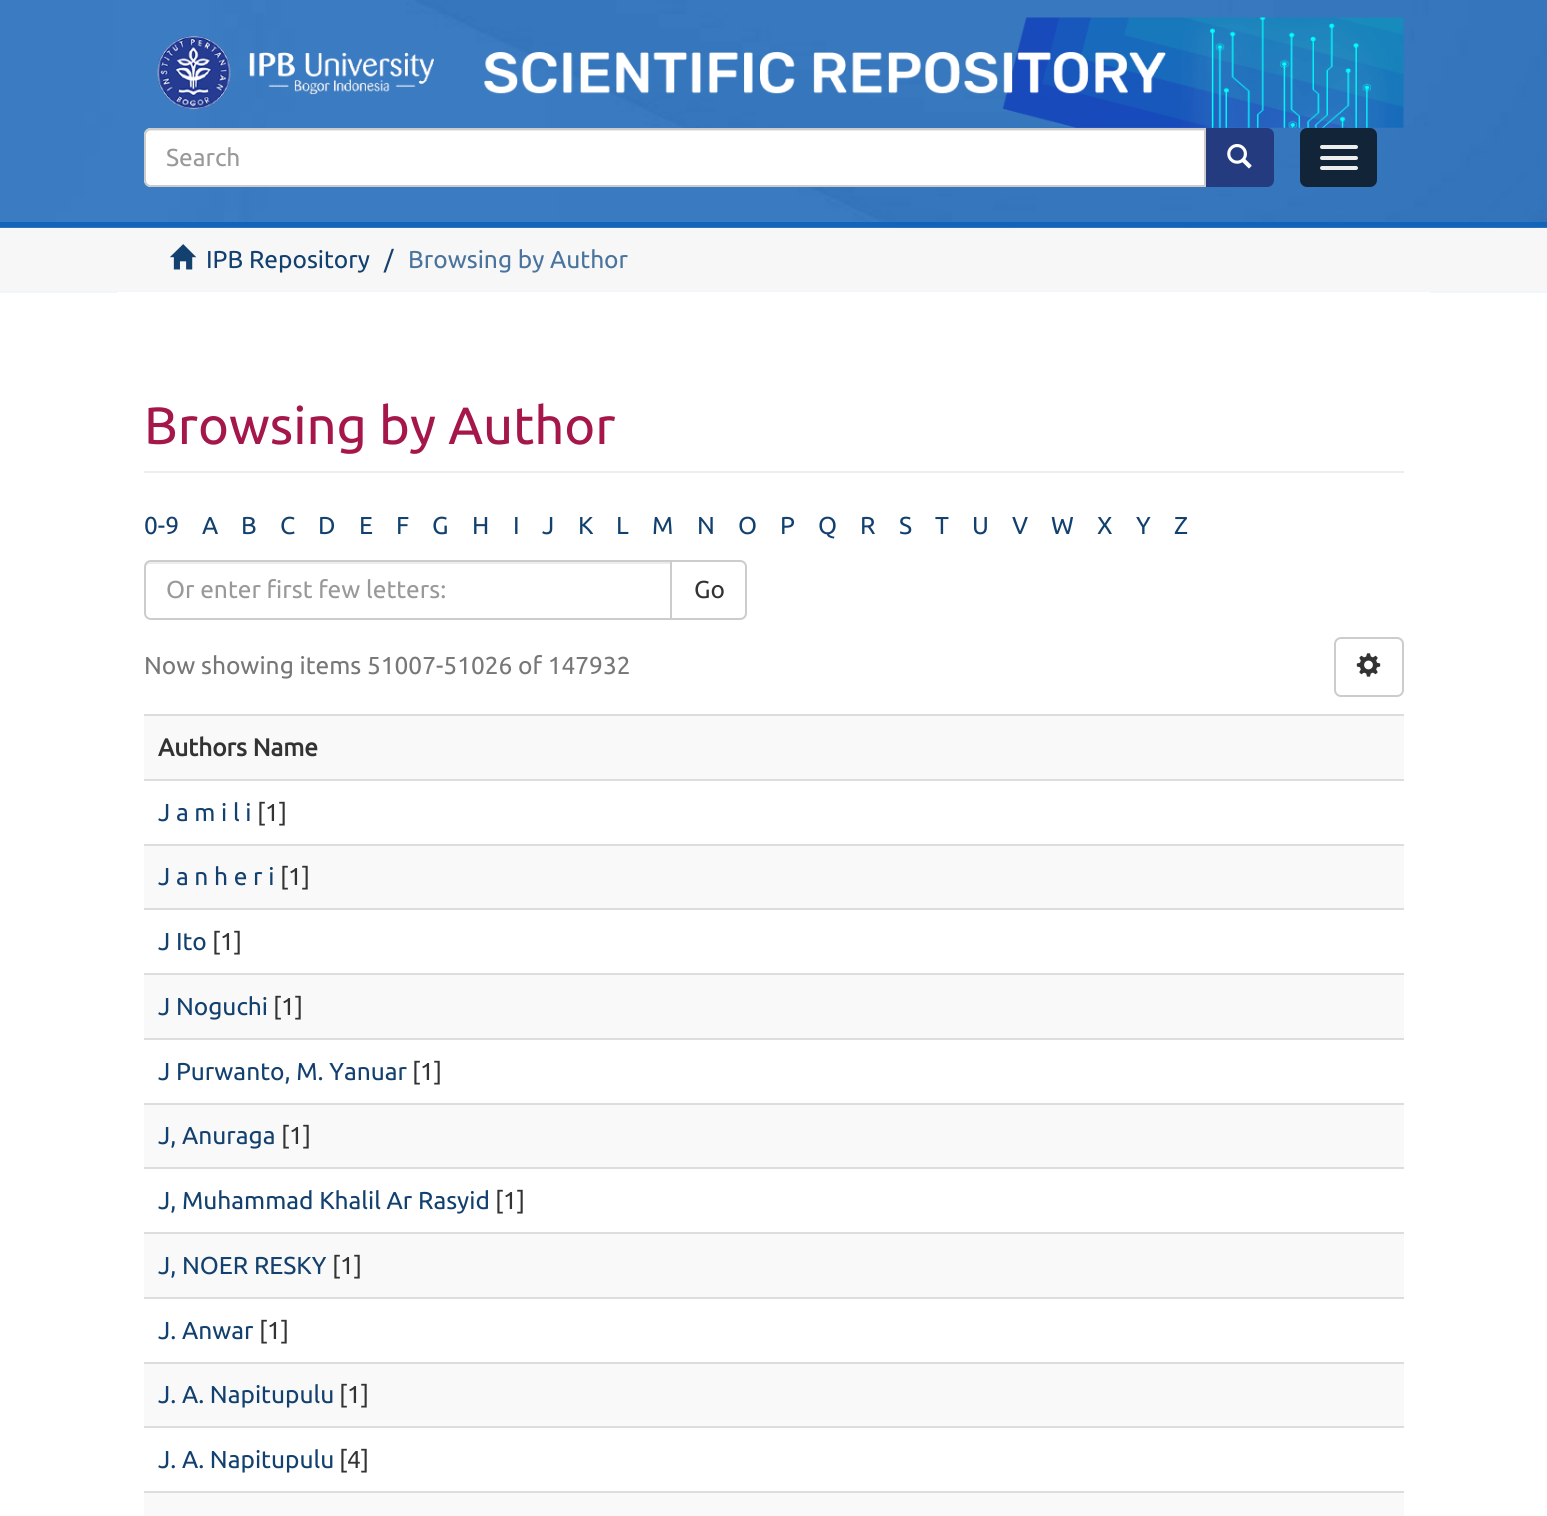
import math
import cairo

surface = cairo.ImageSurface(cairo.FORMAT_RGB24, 1547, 1516)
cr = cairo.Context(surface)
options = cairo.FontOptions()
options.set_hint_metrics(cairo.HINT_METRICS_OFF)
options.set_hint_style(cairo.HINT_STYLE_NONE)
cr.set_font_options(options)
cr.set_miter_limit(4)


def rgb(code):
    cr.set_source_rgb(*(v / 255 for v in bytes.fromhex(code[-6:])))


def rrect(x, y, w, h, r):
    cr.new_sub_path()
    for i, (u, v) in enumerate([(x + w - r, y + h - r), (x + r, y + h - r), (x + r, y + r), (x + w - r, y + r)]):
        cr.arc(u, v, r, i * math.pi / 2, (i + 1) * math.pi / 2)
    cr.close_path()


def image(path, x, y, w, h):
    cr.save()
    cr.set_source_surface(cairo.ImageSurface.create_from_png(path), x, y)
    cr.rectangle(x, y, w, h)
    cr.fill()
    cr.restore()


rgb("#ffffff")
cr.paint()
rgb("#2e6fb5")
cr.rectangle(0, 227, 1547, 1)
cr.fill()
image("img/1.png", 0, 0, 1547, 228)
rgb("#1163bc")
cr.rectangle(0, 222, 1547, 5)
cr.fill()
image("img/2.png", 157, 17, 1247, 111)
rgb("#253b80")
cr.new_path()
cr.move_to(1205, 129)
cr.line_to(1267, 129)
cr.curve_to(1270.5, 129, 1273, 131.5, 1273, 135)
cr.line_to(1273, 180)
cr.curve_to(1273, 183.5, 1270.5, 186, 1267, 186)
cr.line_to(1205, 186)
cr.close_path()
cr.fill_preserve()
cr.stroke()
rgb("#ffffff")
cr.new_path()
cr.move_to(151, 128)
cr.line_to(1206, 128)
cr.line_to(1206, 187)
cr.line_to(151, 187)
cr.curve_to(147, 187, 144, 184, 144, 180)
cr.line_to(144, 135)
cr.curve_to(144, 131, 147, 128, 151, 128)
cr.close_path()
cr.fill()
rgb("#ececec")
cr.new_path()
cr.move_to(150, 131)
cr.line_to(1204, 131)
cr.line_to(1204, 130)
cr.line_to(150, 130)
cr.curve_to(147, 130, 145, 133, 145, 136)
cr.curve_to(145, 134, 148, 131, 150, 131)
cr.close_path()
cr.fill()
cr.new_path()
cr.move_to(151, 129)
cr.line_to(1205, 129)
cr.line_to(1205, 186)
cr.line_to(151, 186)
cr.curve_to(147.5, 186, 145, 183.5, 145, 180)
cr.line_to(145, 135)
cr.curve_to(145, 131.5, 147.5, 129, 151, 129)
cr.close_path()
rgb("#cccccc")
cr.stroke()
image("img/3.png", 1227, 144, 25, 25)
rgb("#122538")
rrect(1300, 128, 77, 59, 7)
cr.fill()
rgb("#eeeeee")
rrect(1320, 145, 38, 4, 2)
cr.fill()
rrect(1320, 156, 38, 4, 2)
cr.fill()
rrect(1320, 166, 38, 4, 2)
cr.fill()
rgb("#f7f7f7")
cr.rectangle(0, 228, 1547, 63)
cr.fill()
rgb("#f1f6fc")
cr.rectangle(0, 291, 1547, 2)
cr.fill()
image("img/4.png", 170, 244, 27, 26)
rgb("#ffffff")
cr.rectangle(117, 292, 1313, 1)
cr.fill()
rgb("#eeeeee")
cr.rectangle(144, 471, 1260, 2)
cr.fill()
cr.new_path()
cr.move_to(671, 561)
cr.line_to(740, 561)
cr.curve_to(743.5, 561, 746, 563.5, 746, 567)
cr.line_to(746, 613)
cr.curve_to(746, 616.5, 743.5, 619, 740, 619)
cr.line_to(671, 619)
cr.close_path()
rgb("#cccccc")
cr.stroke()
rgb("#ffffff")
cr.new_path()
cr.move_to(151, 560)
cr.line_to(672, 560)
cr.line_to(672, 620)
cr.line_to(151, 620)
cr.curve_to(147, 620, 144, 617, 144, 613)
cr.line_to(144, 567)
cr.curve_to(144, 563, 147, 560, 151, 560)
cr.close_path()
cr.fill()
rgb("#ececec")
cr.new_path()
cr.move_to(150, 564)
cr.line_to(670, 564)
cr.line_to(670, 562)
cr.line_to(150, 562)
cr.curve_to(146, 562, 145, 566, 145, 569)
cr.curve_to(145, 566, 148, 564, 150, 564)
cr.close_path()
cr.fill()
cr.new_path()
cr.move_to(151, 561)
cr.line_to(671, 561)
cr.line_to(671, 619)
cr.line_to(151, 619)
cr.curve_to(147.5, 619, 145, 616.5, 145, 613)
cr.line_to(145, 567)
cr.curve_to(145, 563.5, 147.5, 561, 151, 561)
cr.close_path()
rgb("#cccccc")
cr.stroke()
rrect(1335, 638, 68, 58, 6)
cr.stroke()
image("img/5.png", 1356, 653, 25, 24)
for x, y, w, h, color in [
    (144, 716, 1260, 63, "#f9f9f9"),
    (144, 714, 1260, 2, "#dddddd"),
    (144, 779, 1260, 2, "#dddddd"),
    (144, 846, 1260, 62, "#f9f9f9"),
    (144, 844, 1260, 2, "#dddddd"),
    (144, 908, 1260, 2, "#dddddd"),
    (144, 975, 1260, 63, "#f9f9f9"),
    (144, 973, 1260, 2, "#dddddd"),
    (144, 1038, 1260, 2, "#dddddd"),
    (144, 1105, 1260, 62, "#f9f9f9"),
    (144, 1103, 1260, 2, "#dddddd"),
    (144, 1167, 1260, 2, "#dddddd"),
    (144, 1234, 1260, 63, "#f9f9f9"),
    (144, 1232, 1260, 2, "#dddddd"),
    (144, 1297, 1260, 2, "#dddddd"),
    (144, 1364, 1260, 62, "#f9f9f9"),
    (144, 1362, 1260, 2, "#dddddd"),
    (144, 1426, 1260, 2, "#dddddd"),
    (144, 1493, 1260, 23, "#f9f9f9"),
    (144, 1491, 1260, 2, "#dddddd"),
]:
    rgb(color)
    cr.rectangle(x, y, w, h)
    cr.fill()
cr.select_font_face("Ubuntu")
cr.set_font_size(24.5)
rgb("#999999")
cr.move_to(166, 166)
cr.show_text("Search")
rgb("#13416f")
cr.move_to(206, 268)
cr.show_text("IPB Repository")
cr.move_to(384, 268)
cr.show_text("/")
rgb("#4a749e")
cr.move_to(408, 268)
cr.show_text("Browsing by Author")
cr.set_font_size(52.5)
rgb("#a5174a")
cr.move_to(144, 444)
cr.show_text("Browsing by Author")
cr.set_font_size(24.5)
rgb("#13416f")
for x, y, s in [
    (144, 534, "0-9"),
    (202, 534, "A"),
    (241, 534, "B"),
    (280, 534, "C"),
    (318, 534, "D"),
    (359, 534, "E"),
    (396, 534, "F"),
    (432, 534, "G"),
    (472, 534, "H"),
    (513, 534, "I"),
    (542, 534, "J"),
    (578, 534, "K"),
    (616, 534, "L"),
    (652, 534, "M"),
    (697, 534, "N"),
    (738, 534, "O"),
    (780, 534, "P"),
    (818, 534, "Q"),
    (860, 534, "R"),
    (899, 534, "S"),
    (935, 534, "T"),
    (972, 534, "U"),
    (1012, 534, "V"),
    (1051, 534, "W"),
    (1097, 534, "X"),
    (1136, 534, "Y"),
    (1174, 534, "Z"),
]:
    cr.move_to(x, y)
    cr.show_text(s)
rgb("#999999")
cr.move_to(166, 598)
cr.show_text("Or enter first few letters:")
rgb("#333333")
cr.move_to(694, 598)
cr.show_text("Go")
rgb("#777777")
cr.move_to(144, 674)
cr.show_text("Now showing items 51007-51026 of 147932")
cr.select_font_face("Ubuntu", cairo.FONT_SLANT_NORMAL, cairo.FONT_WEIGHT_BOLD)
rgb("#333333")
cr.move_to(158, 756)
cr.show_text("Authors Name")
cr.select_font_face("Ubuntu")
rgb("#13416f")
cr.move_to(158, 821)
cr.show_text("J a m i l i")
rgb("#333333")
cr.move_to(257, 821)
cr.show_text("[1]")
rgb("#13416f")
cr.move_to(158, 885)
cr.show_text("J a n h e r i")
rgb("#333333")
cr.move_to(280, 885)
cr.show_text("[1]")
rgb("#13416f")
cr.move_to(158, 950)
cr.show_text("J Ito")
rgb("#333333")
cr.move_to(212, 950)
cr.show_text("[1]")
rgb("#13416f")
cr.move_to(158, 1015)
cr.show_text("J Noguchi")
rgb("#333333")
cr.move_to(273, 1015)
cr.show_text("[1]")
rgb("#13416f")
cr.move_to(158, 1080)
cr.show_text("J Purwanto, M. Yanuar")
rgb("#333333")
cr.move_to(412, 1080)
cr.show_text("[1]")
rgb("#13416f")
cr.move_to(158, 1144)
cr.show_text("J, Anuraga")
rgb("#333333")
cr.move_to(281, 1144)
cr.show_text("[1]")
rgb("#13416f")
cr.move_to(158, 1209)
cr.show_text("J, Muhammad Khalil Ar Rasyid")
rgb("#333333")
cr.move_to(495, 1209)
cr.show_text("[1]")
rgb("#13416f")
cr.move_to(158, 1274)
cr.show_text("J, NOER RESKY")
rgb("#333333")
cr.move_to(332, 1274)
cr.show_text("[1]")
rgb("#13416f")
cr.move_to(158, 1339)
cr.show_text("J. Anwar")
rgb("#333333")
cr.move_to(259, 1339)
cr.show_text("[1]")
rgb("#13416f")
cr.move_to(158, 1403)
cr.show_text("J. A. Napitupulu")
rgb("#333333")
cr.move_to(339, 1403)
cr.show_text("[1]")
rgb("#13416f")
cr.move_to(158, 1468)
cr.show_text("J. A. Napitupulu")
rgb("#333333")
cr.move_to(339, 1468)
cr.show_text("[4]")
surface.write_to_png("page.png")
